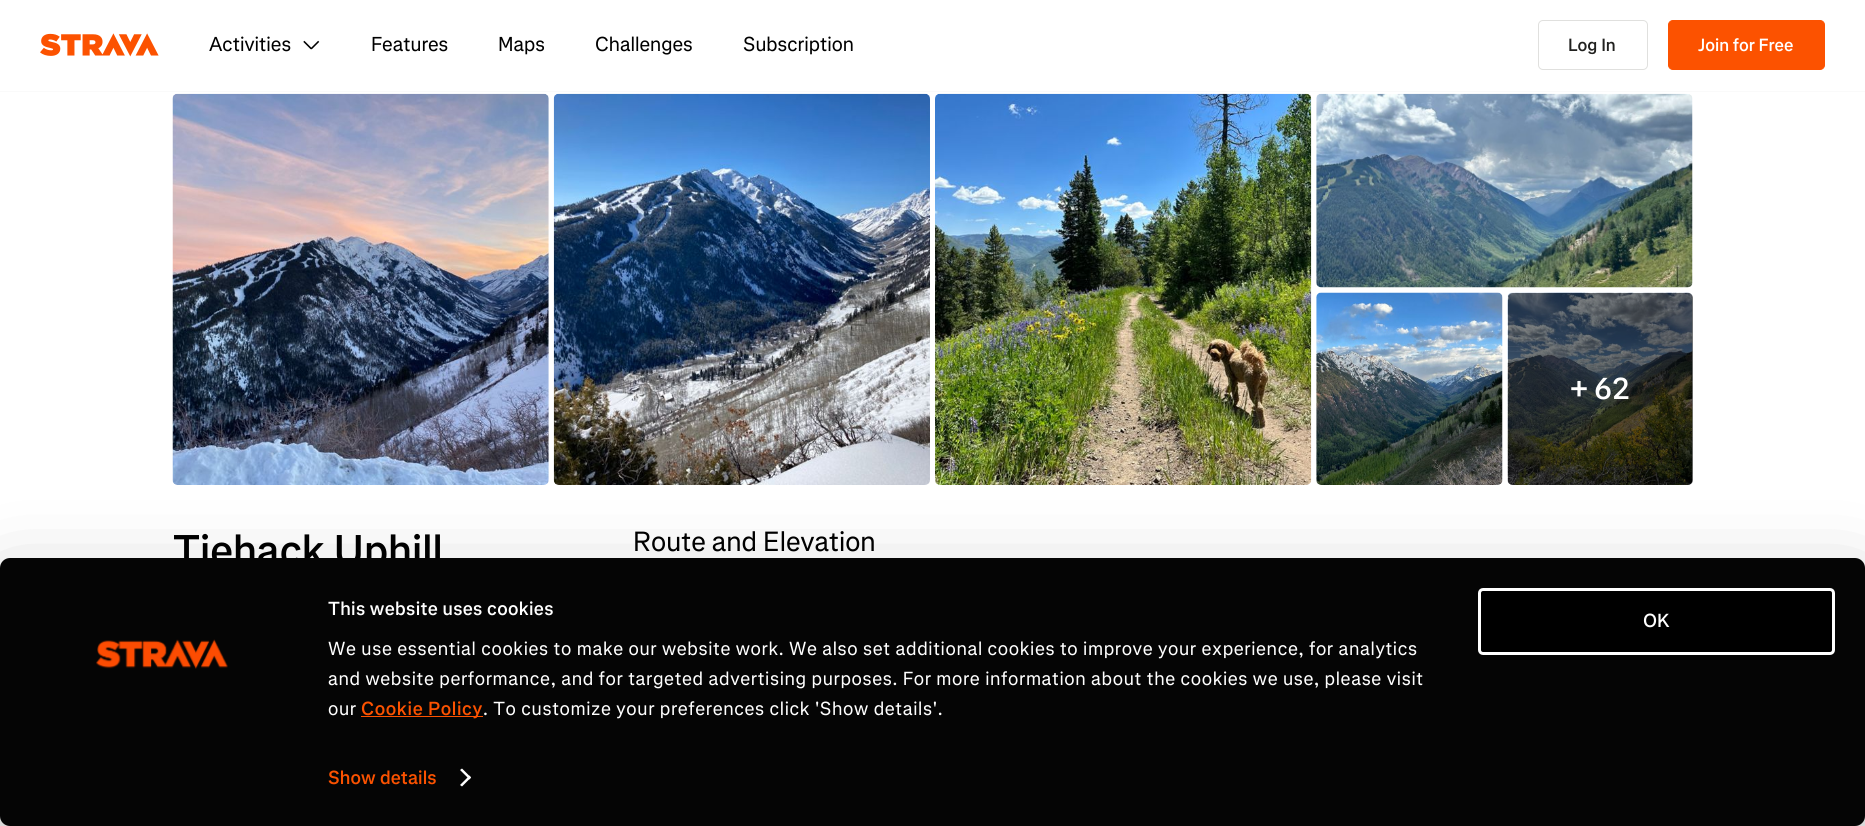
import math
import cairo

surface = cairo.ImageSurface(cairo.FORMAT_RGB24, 1865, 826)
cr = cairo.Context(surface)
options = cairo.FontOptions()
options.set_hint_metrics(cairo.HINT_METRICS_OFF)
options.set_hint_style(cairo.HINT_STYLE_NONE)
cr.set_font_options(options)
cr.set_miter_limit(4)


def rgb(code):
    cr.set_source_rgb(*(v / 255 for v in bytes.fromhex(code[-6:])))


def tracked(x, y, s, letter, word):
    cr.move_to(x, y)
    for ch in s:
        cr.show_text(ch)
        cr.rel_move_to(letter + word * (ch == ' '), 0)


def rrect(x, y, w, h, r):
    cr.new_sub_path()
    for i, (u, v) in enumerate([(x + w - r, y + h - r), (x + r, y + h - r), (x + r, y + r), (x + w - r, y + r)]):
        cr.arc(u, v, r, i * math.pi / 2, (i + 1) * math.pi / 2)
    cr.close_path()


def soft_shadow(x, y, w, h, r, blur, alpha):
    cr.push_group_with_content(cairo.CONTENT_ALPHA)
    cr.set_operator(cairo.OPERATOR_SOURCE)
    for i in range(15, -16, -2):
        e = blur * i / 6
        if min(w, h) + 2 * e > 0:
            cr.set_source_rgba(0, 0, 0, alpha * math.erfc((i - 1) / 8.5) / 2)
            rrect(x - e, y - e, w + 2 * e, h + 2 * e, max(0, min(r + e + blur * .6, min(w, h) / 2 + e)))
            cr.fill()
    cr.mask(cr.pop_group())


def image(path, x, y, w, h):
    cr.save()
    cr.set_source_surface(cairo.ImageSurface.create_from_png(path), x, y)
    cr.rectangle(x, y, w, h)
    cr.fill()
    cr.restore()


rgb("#ffffff")
cr.paint()
rgb("#fafafa")
cr.rectangle(0, 91, 1865, 1)
cr.fill()
image("img/1.png", 40, 33, 119, 24)
image("img/2.png", 303, 40, 17, 10)
rrect(1538.5, 20.5, 109, 49, 4.5)
rgb("#e0e0de")
cr.set_line_width(1)
cr.stroke()
rgb("#fc5200")
rrect(1668.5, 20.5, 156, 49, 4.5)
cr.fill_preserve()
cr.stroke()
image("img/3.png", 172, 93, 377, 392)
image("img/4.png", 553, 93, 377, 392)
image("img/5.png", 935, 93, 377, 392)
image("img/6.png", 1316, 93, 377, 195)
image("img/7.png", 1316, 292, 187, 193)
image("img/8.png", 1507, 292, 186, 193)
cr.set_source_rgba(0, 0, 0, 0.5)
rrect(1508, 293, 185, 192, 5)
cr.fill()
rgb("#000000")
soft_shadow(0, 595, 1865, 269, 10, 44, 0.3)
cr.select_font_face("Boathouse")
cr.set_font_size(20)
rgb("#000000")
for x, y, s in [
    (209, 51, "Activities"),
    (371, 51, "Features"),
    (498, 51, "Maps"),
    (595, 51, "Challenges"),
    (743, 51, "Subscription"),
]:
    cr.move_to(x, y)
    cr.show_text(s)
cr.select_font_face("Boathouse Medium")
cr.set_font_size(17.5)
rgb("#21211f")
cr.move_to(1568, 51)
cr.show_text("Log In")
rgb("#ffffff")
cr.move_to(1698, 51)
cr.show_text("Join for Free")
cr.set_font_size(30)
cr.move_to(1570, 399)
cr.show_text("+ 62")
cr.set_font_size(42.5)
rgb("#000000")
cr.move_to(173, 565)
cr.show_text("Tiehack Uphill")
cr.select_font_face("Boathouse")
cr.set_font_size(27.5)
cr.move_to(633, 551)
cr.show_text("Route and Elevation")
rgb("#050505")
rrect(0, 558, 1865, 268, 10)
cr.fill()
cr.select_font_face("Boathouse Medium")
cr.set_font_size(18.75)
rgb("#ffffff")
tracked(328, 615, "This website uses cookies", 0.3, 0)
cr.select_font_face("Boathouse")
for x, y, s in [
    (328, 655, "We use essential cookies to make our website work. We also set additional cookies to improve your experience, for analytics"),
    (328, 685, "and website performance, and for targeted advertising purposes. For more information about the cookies we use, please visit"),
    (328, 715, "our"),
]:
    tracked(x, y, s, 0.62, 0)
rgb("#fc5200")
cr.rectangle(361, 716, 122, 1)
cr.fill()
cr.select_font_face("Boathouse Medium")
tracked(361, 715, "Cookie Policy", 0.62, 0)
cr.select_font_face("Boathouse")
rgb("#ffffff")
tracked(483, 715, ". To customize your preferences click 'Show details'.", 0.62, 0)
cr.select_font_face("Boathouse Medium")
rgb("#fc5200")
tracked(328, 784, "Show details", 0.1, 0)
rgb("#ffffff")
cr.new_path()
cr.move_to(462, 768.5)
cr.line_to(471, 777.5)
cr.line_to(469.5, 779.5)
cr.line_to(460, 770)
cr.close_path()
cr.fill()
cr.new_path()
cr.move_to(469.5, 775.5)
cr.line_to(471, 777.5)
cr.line_to(462, 786.5)
cr.line_to(460, 785)
cr.close_path()
cr.fill()
rgb("#000000")
rrect(1479.5, 589.5, 354, 64, 3.5)
cr.fill_preserve()
rgb("#ffffff")
cr.set_line_width(3)
cr.stroke()
cr.move_to(1643, 627)
cr.show_text("OK")
image("img/9.png", 96, 639, 132, 30)
surface.write_to_png("page.png")
